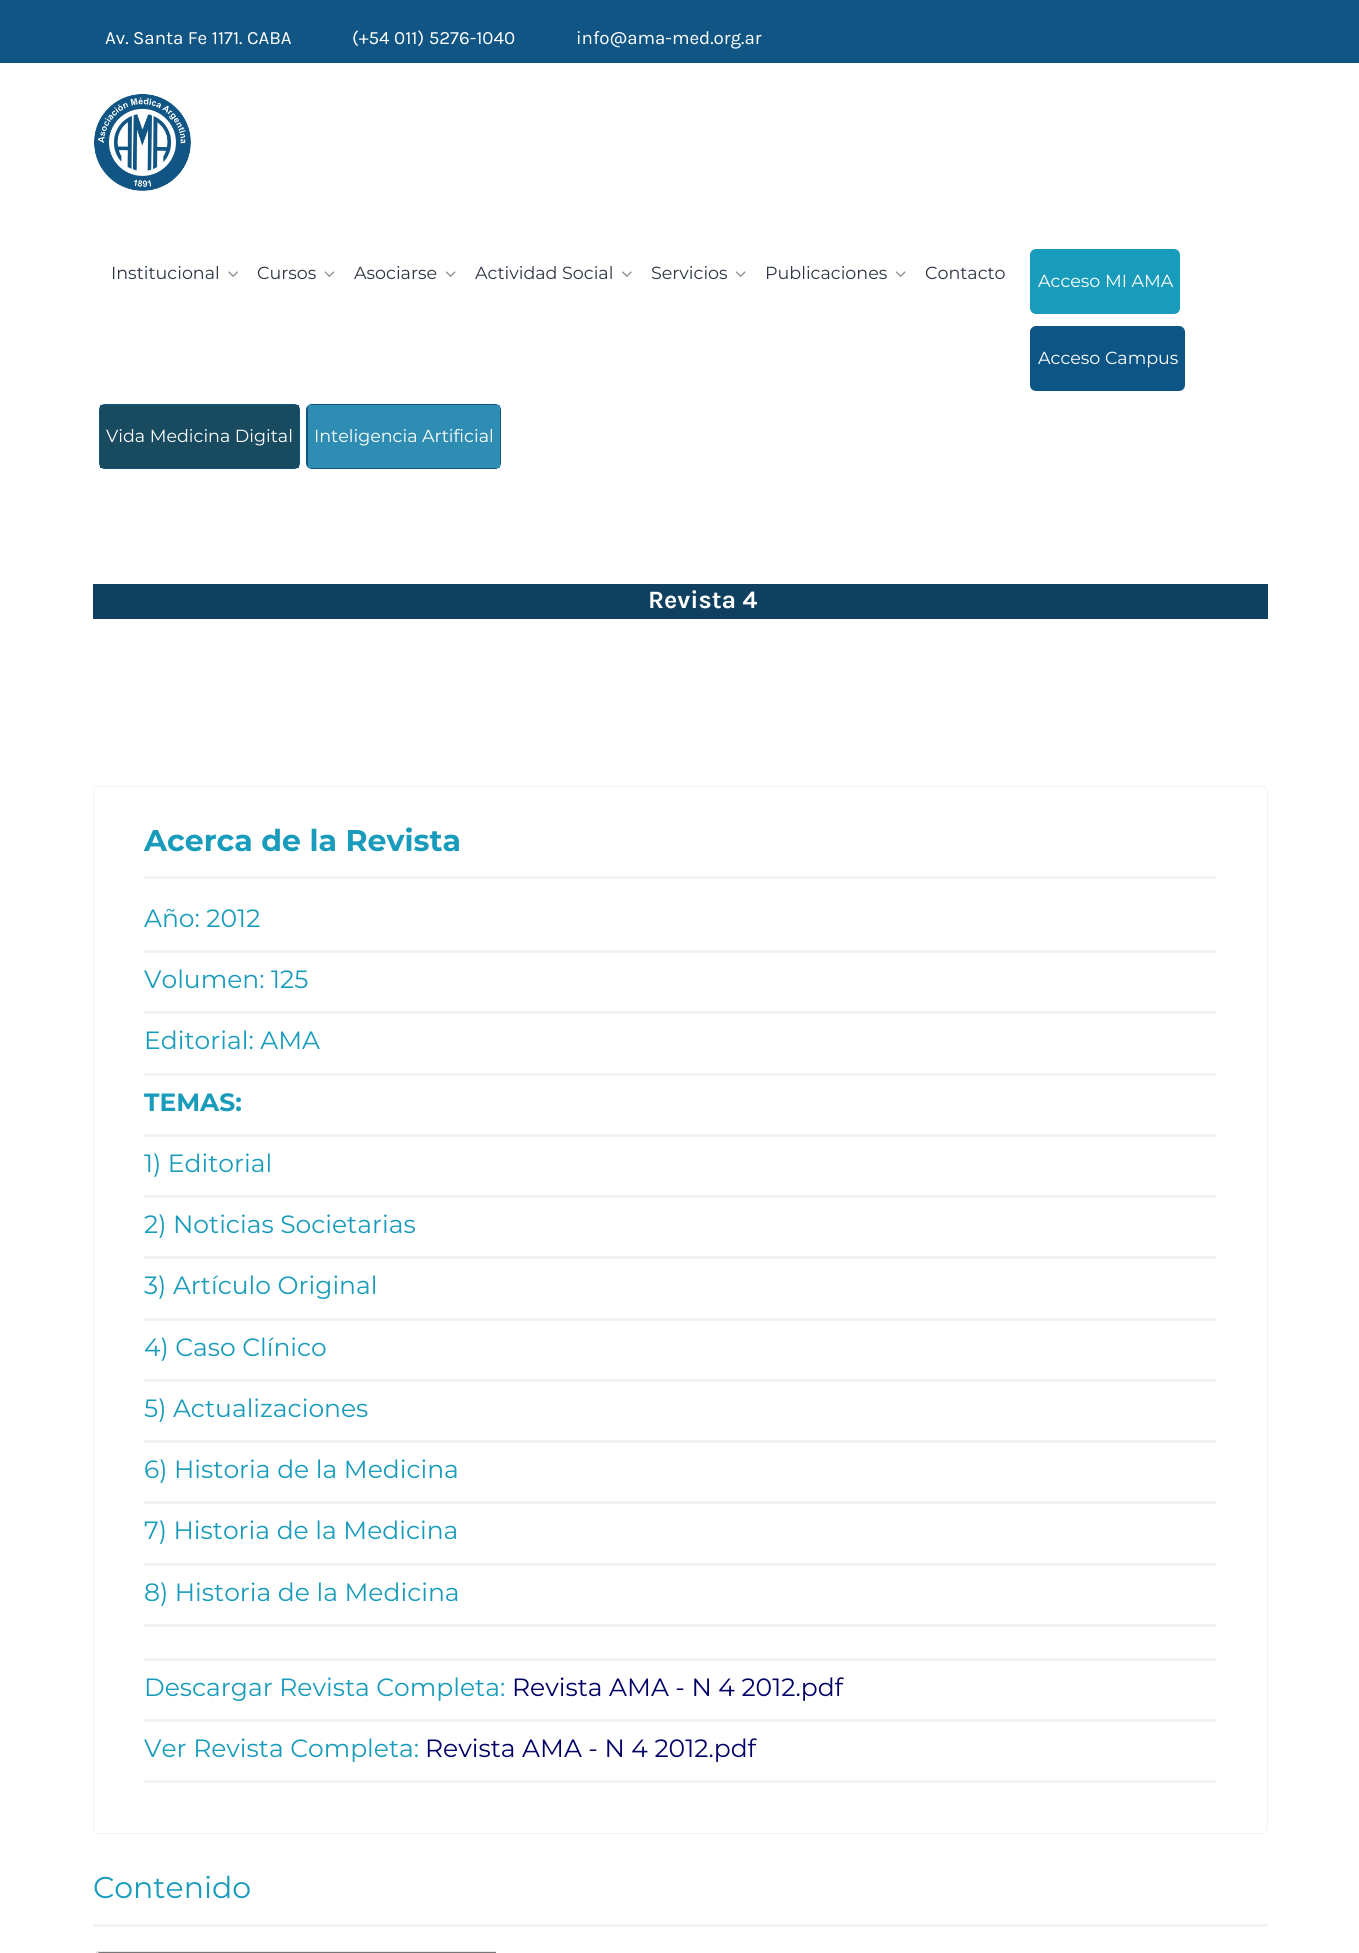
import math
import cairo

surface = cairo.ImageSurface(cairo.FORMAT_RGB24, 1359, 1953)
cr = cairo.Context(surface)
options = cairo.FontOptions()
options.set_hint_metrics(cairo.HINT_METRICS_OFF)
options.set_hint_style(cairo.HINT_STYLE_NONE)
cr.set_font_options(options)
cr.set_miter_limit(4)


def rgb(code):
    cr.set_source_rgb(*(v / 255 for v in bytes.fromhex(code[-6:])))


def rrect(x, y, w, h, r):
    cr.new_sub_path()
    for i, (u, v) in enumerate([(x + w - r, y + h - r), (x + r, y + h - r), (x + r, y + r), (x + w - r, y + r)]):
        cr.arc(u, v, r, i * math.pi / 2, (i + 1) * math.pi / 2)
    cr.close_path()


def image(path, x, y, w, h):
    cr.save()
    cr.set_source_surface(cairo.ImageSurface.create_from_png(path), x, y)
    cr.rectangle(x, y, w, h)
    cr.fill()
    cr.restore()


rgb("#ffffff")
cr.paint()
rgb("#105584")
cr.rectangle(0, 0, 1359, 63)
cr.fill()
image("img/1.png", 94, 93, 97, 98)
image("img/2.png", 228, 271, 10, 6)
image("img/3.png", 324, 271, 11, 6)
image("img/4.png", 445, 271, 11, 6)
image("img/5.png", 622, 271, 10, 6)
image("img/4.png", 735, 271, 11, 6)
image("img/4.png", 895, 271, 11, 6)
rgb("#199cbb")
rrect(1030, 249, 150, 65, 6)
cr.fill()
rgb("#0d5584")
rrect(1030, 326, 155, 65, 6)
cr.fill()
rrect(99, 404, 201, 65, 6)
cr.fill()
rgb("#184b5f")
cr.rectangle(100, 405, 199, 63)
cr.fill()
rgb("#0d5584")
rrect(306, 404, 195, 65, 6)
cr.fill()
rgb("#2f8db3")
cr.rectangle(308, 405, 192, 63)
cr.fill()
rgb("#0f4060")
cr.rectangle(93, 584, 1175, 35)
cr.fill()
rrect(93.5, 786.5, 1174, 1047, 5.5)
rgb("#f3f3f3")
cr.set_line_width(1)
cr.stroke()
for x, y, w, h, color in [
    (144, 876, 1072, 3, "#f3f3f3"),
    (144, 950, 1072, 3, "#f3f3f3"),
    (144, 1011, 1072, 3, "#f3f3f3"),
    (144, 1073, 1072, 3, "#f3f3f3"),
    (144, 1134, 1072, 3, "#f3f3f3"),
    (144, 1195, 1072, 3, "#f3f3f3"),
    (144, 1256, 1072, 3, "#f3f3f3"),
    (144, 1318, 1072, 3, "#f3f3f3"),
    (144, 1379, 1072, 3, "#f3f3f3"),
    (144, 1440, 1072, 3, "#f3f3f3"),
    (144, 1501, 1072, 3, "#f3f3f3"),
    (144, 1563, 1072, 3, "#f3f3f3"),
    (144, 1624, 1072, 3, "#f3f3f3"),
    (144, 1658, 1072, 3, "#f3f3f3"),
    (144, 1719, 1072, 3, "#f3f3f3"),
    (144, 1780, 1072, 3, "#f3f3f3"),
    (93, 1924, 1175, 3, "#f3f3f3"),
]:
    rgb(color)
    cr.rectangle(x, y, w, h)
    cr.fill()
rgb("#777777")
cr.new_path()
cr.move_to(100, 1951)
cr.line_to(496, 1951)
cr.line_to(496, 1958)
cr.line_to(100, 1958)
cr.curve_to(97, 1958, 95, 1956, 95, 1953)
cr.line_to(95, 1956)
cr.curve_to(95, 1953, 97, 1951, 100, 1951)
cr.close_path()
cr.fill()
rgb("#eaeaea")
cr.set_fill_rule(cairo.FILL_RULE_EVEN_ODD)
cr.new_path()
cr.move_to(100, 1951)
cr.line_to(496, 1951)
cr.line_to(496, 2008)
cr.line_to(100, 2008)
cr.curve_to(97, 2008, 95, 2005, 95, 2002)
cr.line_to(95, 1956)
cr.curve_to(95, 1953, 97, 1951, 100, 1951)
cr.close_path()
cr.move_to(100, 1952)
cr.line_to(496, 1952)
cr.line_to(496, 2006)
cr.line_to(100, 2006)
cr.curve_to(98, 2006, 96, 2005, 96, 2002)
cr.line_to(96, 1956)
cr.curve_to(96, 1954, 98, 1952, 100, 1952)
cr.close_path()
cr.fill()
cr.select_font_face("Karla")
cr.set_font_size(18.75)
rgb("#ffffff")
for x, y, s in [
    (105, 44, "Av. Santa Fe 1171. CABA"),
    (352, 44, "(+54 011) 5276-1040"),
    (576, 44, "info@ama-med.org.ar"),
]:
    cr.move_to(x, y)
    cr.show_text(s)
cr.select_font_face("Montserrat")
cr.set_font_size(17.5)
rgb("#2d3542")
for x, y, s in [
    (111, 279, "Institucional"),
    (257, 279, "Cursos"),
    (354, 279, "Asociarse"),
    (475, 279, "Actividad Social"),
    (651, 279, "Servicios"),
    (765, 279, "Publicaciones"),
    (925, 279, "Contacto"),
]:
    cr.move_to(x, y)
    cr.show_text(s)
rgb("#ffffff")
for x, y, s in [
    (1038, 287, "Acceso MI AMA"),
    (1038, 364, "Acceso Campus"),
    (106, 442, "Vida Medicina Digital"),
    (314, 442, "Inteligencia Artificial"),
]:
    cr.move_to(x, y)
    cr.show_text(s)
cr.select_font_face("Karla", cairo.FONT_SLANT_NORMAL, cairo.FONT_WEIGHT_BOLD)
cr.set_font_size(25)
cr.move_to(648, 608)
cr.show_text("Revista 4")
cr.select_font_face("Montserrat", cairo.FONT_SLANT_NORMAL, cairo.FONT_WEIGHT_BOLD)
cr.set_font_size(30)
rgb("#199cbb")
cr.move_to(144, 851)
cr.show_text("Acerca de la Revista")
cr.select_font_face("Montserrat")
cr.set_font_size(25)
for x, y, s in [
    (144, 927, "Año: 2012"),
    (144, 988, "Volumen: 125"),
    (144, 1049, "Editorial: AMA"),
]:
    cr.move_to(x, y)
    cr.show_text(s)
cr.select_font_face("Montserrat", cairo.FONT_SLANT_NORMAL, cairo.FONT_WEIGHT_BOLD)
cr.move_to(144, 1111)
cr.show_text("TEMAS:")
cr.select_font_face("Montserrat")
for x, y, s in [
    (144, 1172, "1) Editorial"),
    (144, 1233, "2) Noticias Societarias"),
    (144, 1294, "3) Artículo Original"),
    (144, 1356, "4) Caso Clínico"),
    (144, 1417, "5) Actualizaciones"),
    (144, 1478, "6) Historia de la Medicina"),
    (144, 1539, "7) Historia de la Medicina"),
    (144, 1601, "8) Historia de la Medicina"),
    (144, 1696, "Descargar Revista Completa:"),
]:
    cr.move_to(x, y)
    cr.show_text(s)
rgb("#000066")
cr.move_to(512, 1696)
cr.show_text("Revista AMA - N 4 2012.pdf")
rgb("#199cbb")
cr.move_to(144, 1757)
cr.show_text("Ver Revista Completa:")
rgb("#000066")
cr.move_to(425, 1757)
cr.show_text("Revista AMA - N 4 2012.pdf")
cr.set_font_size(30)
rgb("#199cbb")
cr.move_to(93, 1898)
cr.show_text("Contenido")
surface.write_to_png("page.png")
